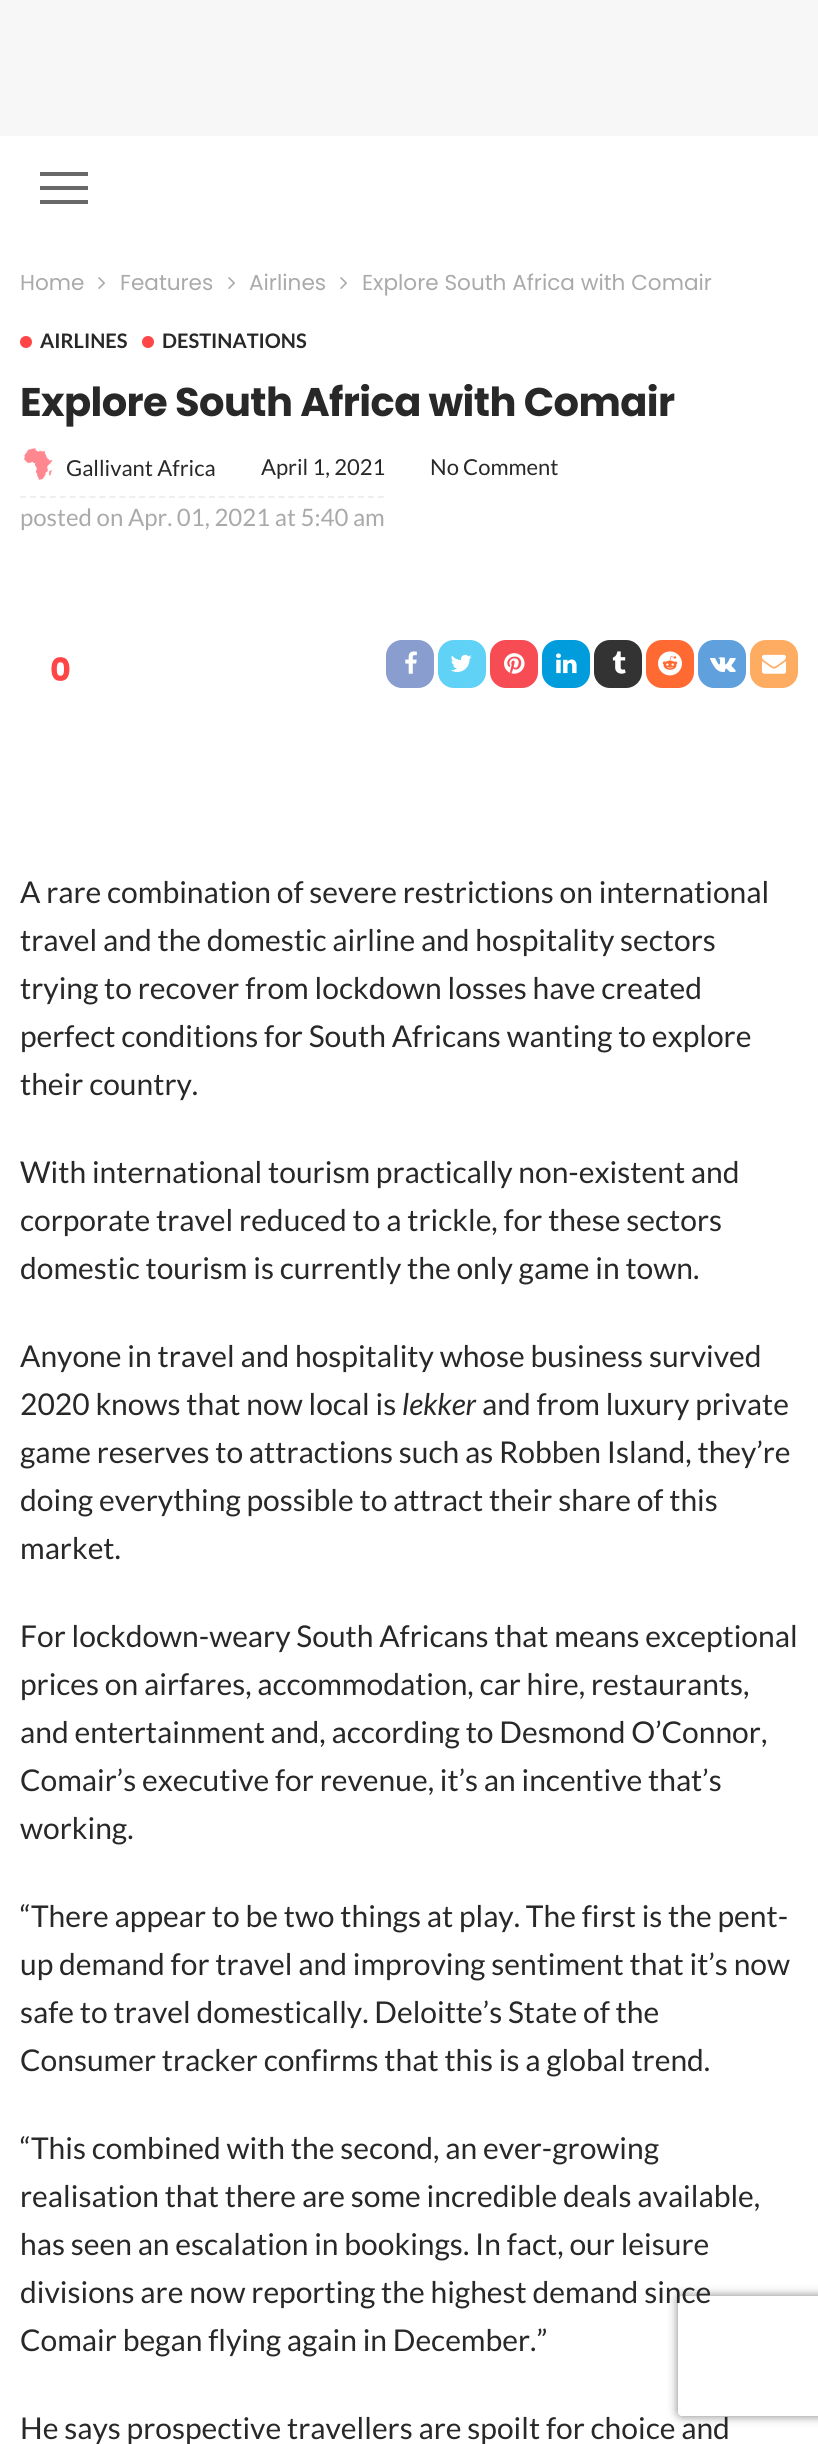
import math
import cairo

surface = cairo.ImageSurface(cairo.FORMAT_RGB24, 818, 2444)
cr = cairo.Context(surface)
options = cairo.FontOptions()
options.set_hint_metrics(cairo.HINT_METRICS_OFF)
options.set_hint_style(cairo.HINT_STYLE_NONE)
cr.set_font_options(options)
cr.set_miter_limit(4)


def rgb(code):
    cr.set_source_rgb(*(v / 255 for v in bytes.fromhex(code[-6:])))


def tracked(x, y, s, letter, word):
    cr.move_to(x, y)
    for ch in s:
        cr.show_text(ch)
        cr.rel_move_to(letter + word * (ch == ' '), 0)


def rrect(x, y, w, h, r):
    cr.new_sub_path()
    for i, (u, v) in enumerate([(x + w - r, y + h - r), (x + r, y + h - r), (x + r, y + r), (x + w - r, y + r)]):
        cr.arc(u, v, r, i * math.pi / 2, (i + 1) * math.pi / 2)
    cr.close_path()


def soft_shadow(x, y, w, h, r, blur, alpha):
    cr.push_group_with_content(cairo.CONTENT_ALPHA)
    cr.set_operator(cairo.OPERATOR_SOURCE)
    for i in range(15, -16, -2):
        e = blur * i / 6
        if min(w, h) + 2 * e > 0:
            cr.set_source_rgba(0, 0, 0, alpha * math.erfc((i - 1) / 8.5) / 2)
            rrect(x - e, y - e, w + 2 * e, h + 2 * e, max(0, min(r + e + blur * .6, min(w, h) / 2 + e)))
            cr.fill()
    cr.mask(cr.pop_group())


def image(path, x, y, w, h):
    cr.save()
    cr.set_source_surface(cairo.ImageSurface.create_from_png(path), x, y)
    cr.rectangle(x, y, w, h)
    cr.fill()
    cr.restore()


rgb("#ffffff")
cr.paint()
for x, y, w, h, color in [
    (0, 0, 818, 136, "#f7f7f7"),
    (40, 186, 48, 4, "#696969"),
    (40, 172, 48, 4, "#696969"),
    (40, 200, 48, 4, "#696969"),
]:
    rgb(color)
    cr.rectangle(x, y, w, h)
    cr.fill()
image("img/1.png", 98, 277, 7, 12)
image("img/1.png", 228, 277, 7, 12)
image("img/1.png", 340, 277, 7, 12)
rgb("#ff4545")
cr.arc(26, 342, 6, 0, 2 * math.pi)
cr.fill()
cr.arc(148, 342, 6, 0, 2 * math.pi)
cr.fill()
image("img/2.png", 24, 448, 29, 32)
cr.new_path()
cr.move_to(20, 497)
cr.line_to(384, 497)
rgb("#efefef")
cr.set_dash([6, 3.94])
cr.stroke()
rgb("#899dce")
rrect(386, 640, 48, 48, 16)
cr.fill()
image("img/3.png", 405, 651, 12, 23)
rgb("#60d2f5")
rrect(438, 640, 48, 48, 16)
cr.fill()
image("img/4.png", 450, 654, 22, 18)
rgb("#f74c53")
rrect(490, 640, 48, 48, 16)
cr.fill()
image("img/5.png", 504, 653, 21, 21)
rgb("#009cdc")
rrect(542, 640, 48, 48, 16)
cr.fill()
image("img/6.png", 556, 653, 21, 21)
rgb("#333333")
rrect(594, 640, 48, 48, 16)
cr.fill()
image("img/7.png", 612, 651, 14, 23)
rgb("#ff6a33")
rrect(646, 640, 48, 48, 16)
cr.fill()
image("img/8.png", 658, 651, 24, 25)
rgb("#5fa0dd")
rrect(698, 640, 48, 48, 16)
cr.fill()
image("img/9.png", 710, 657, 26, 15)
rgb("#ffac63")
rrect(750, 640, 48, 48, 16)
cr.fill()
image("img/10.png", 762, 654, 24, 20)
cr.save()
cr.set_fill_rule(cairo.FILL_RULE_EVEN_ODD)
cr.new_path()
cr.move_to(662, 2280)
cr.line_to(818, 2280)
cr.line_to(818, 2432)
cr.line_to(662, 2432)
cr.close_path()
cr.move_to(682, 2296)
cr.line_to(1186, 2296)
cr.curve_to(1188, 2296, 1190, 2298, 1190, 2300)
cr.line_to(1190, 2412)
cr.curve_to(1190, 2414, 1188, 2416, 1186, 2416)
cr.line_to(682, 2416)
cr.curve_to(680, 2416, 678, 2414, 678, 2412)
cr.line_to(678, 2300)
cr.curve_to(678, 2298, 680, 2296, 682, 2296)
cr.close_path()
cr.clip()
rgb("#808080")
soft_shadow(678, 2296, 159, 120, 4, 5, 1)
cr.restore()
cr.select_font_face("Poppins")
cr.set_font_size(21.6)
rgb("#aaaaaa")
for x, y, s in [
    (20, 290, "Home"),
    (120, 290, "Features"),
    (249, 290, "Airlines"),
    (362, 290, "Explore South Africa with Comair"),
]:
    cr.move_to(x, y)
    cr.show_text(s)
cr.select_font_face("Lato", cairo.FONT_SLANT_NORMAL, cairo.FONT_WEIGHT_BOLD)
cr.set_font_size(20)
rgb("#282828")
cr.move_to(40, 348)
cr.show_text("AIRLINES")
cr.move_to(162, 348)
cr.show_text("DESTINATIONS")
cr.select_font_face("Poppins", cairo.FONT_SLANT_NORMAL, cairo.FONT_WEIGHT_BOLD)
cr.set_font_size(40)
tracked(20, 416, "Explore South Africa with Comair", -0.6, 0)
cr.select_font_face("Lato")
cr.set_font_size(22)
for x, y, s in [
    (66, 476, "Gallivant Africa"),
    (261, 475, "April 1, 2021"),
    (430, 475, "No Comment"),
]:
    cr.move_to(x, y)
    cr.show_text(s)
cr.set_font_size(24)
rgb("#aaaaaa")
cr.move_to(20, 526)
cr.show_text("posted on Apr. 01, 2021 at 5:40 am")
cr.select_font_face("Poppins", cairo.FONT_SLANT_NORMAL, cairo.FONT_WEIGHT_BOLD)
cr.set_font_size(32)
rgb("#ff4545")
cr.move_to(50, 681)
cr.show_text("0")
cr.select_font_face("Lato")
cr.set_font_size(30)
rgb("#282828")
for x, y, s in [
    (20, 903, "A rare combination of severe restrictions on international"),
    (20, 951, "travel and the domestic airline and hospitality sectors"),
    (20, 999, "trying to recover from lockdown losses have created"),
    (20, 1047, "perfect conditions for South Africans wanting to explore"),
    (20, 1095, "their country."),
    (20, 1183, "With international tourism practically non-existent and"),
    (20, 1231, "corporate travel reduced to a trickle, for these sectors"),
    (20, 1279, "domestic tourism is currently the only game in town."),
    (20, 1367, "Anyone in travel and hospitality whose business survived"),
    (20, 1415, "2020 knows that now local is"),
]:
    cr.move_to(x, y)
    cr.show_text(s)
cr.select_font_face("Lato", cairo.FONT_SLANT_ITALIC)
cr.move_to(402, 1415)
cr.show_text("lekker")
cr.select_font_face("Lato")
for x, y, s in [
    (482, 1415, "and from luxury private"),
    (20, 1463, "game reserves to attractions such as Robben Island, they’re"),
    (20, 1511, "doing everything possible to attract their share of this"),
    (20, 1559, "market."),
    (20, 1647, "For lockdown-weary South Africans that means exceptional"),
    (20, 1695, "prices on airfares, accommodation, car hire, restaurants,"),
    (20, 1743, "and entertainment and, according to Desmond O’Connor,"),
    (20, 1791, "Comair’s executive for revenue, it’s an incentive that’s"),
    (20, 1839, "working."),
    (20, 1927, "“There appear to be two things at play. The first is the pent-"),
    (20, 1975, "up demand for travel and improving sentiment that it’s now"),
    (20, 2023, "safe to travel domestically. Deloitte’s State of the"),
    (20, 2071, "Consumer tracker confirms that this is a global trend."),
    (20, 2159, "“This combined with the second, an ever-growing"),
    (20, 2207, "realisation that there are some incredible deals available,"),
    (20, 2255, "has seen an escalation in bookings. In fact, our leisure"),
    (20, 2303, "divisions are now reporting the highest demand since"),
    (20, 2351, "Comair began flying again in December.”"),
    (20, 2439, "He says prospective travellers are spoilt for choice and"),
]:
    cr.move_to(x, y)
    cr.show_text(s)
surface.write_to_png("page.png")
